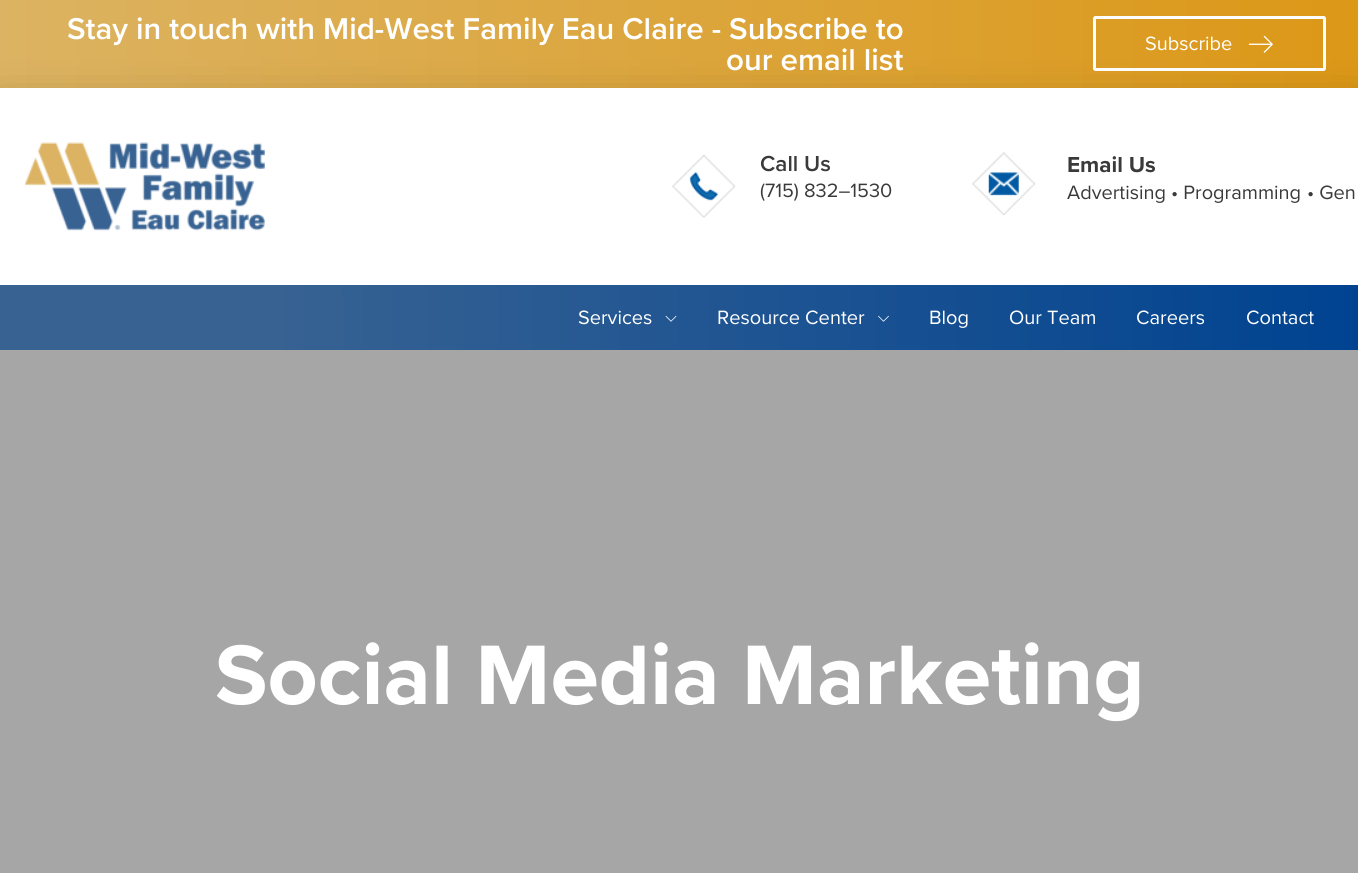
import math
import cairo

surface = cairo.ImageSurface(cairo.FORMAT_RGB24, 1358, 873)
cr = cairo.Context(surface)
options = cairo.FontOptions()
options.set_hint_metrics(cairo.HINT_METRICS_OFF)
options.set_hint_style(cairo.HINT_STYLE_NONE)
cr.set_font_options(options)
cr.set_miter_limit(4)


def rgb(code):
    cr.set_source_rgb(*(v / 255 for v in bytes.fromhex(code[-6:])))


def rrect(x, y, w, h, r):
    cr.new_sub_path()
    for i, (u, v) in enumerate([(x + w - r, y + h - r), (x + r, y + h - r), (x + r, y + r), (x + w - r, y + r)]):
        cr.arc(u, v, r, i * math.pi / 2, (i + 1) * math.pi / 2)
    cr.close_path()


def soft_shadow(x, y, w, h, r, blur, alpha):
    cr.push_group_with_content(cairo.CONTENT_ALPHA)
    cr.set_operator(cairo.OPERATOR_SOURCE)
    for i in range(15, -16, -2):
        e = blur * i / 6
        if min(w, h) + 2 * e > 0:
            cr.set_source_rgba(0, 0, 0, alpha * math.erfc((i - 1) / 8.5) / 2)
            rrect(x - e, y - e, w + 2 * e, h + 2 * e, max(0, min(r + e + blur * .6, min(w, h) / 2 + e)))
            cr.fill()
    cr.mask(cr.pop_group())


def image(path, x, y, w, h):
    cr.save()
    cr.set_source_surface(cairo.ImageSurface.create_from_png(path), x, y)
    cr.rectangle(x, y, w, h)
    cr.fill()
    cr.restore()


rgb("#ffffff")
cr.paint()
gradient = cairo.LinearGradient(0, 44, 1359, 44)
gradient.add_color_stop_rgba(0, 0.863, 0.702, 0.384, 1)
gradient.add_color_stop_rgba(1, 0.863, 0.596, 0.09, 1)
cr.set_source(gradient)
cr.rectangle(0, 0, 1358, 88)
cr.fill()
rrect(1094.5, 17.5, 230, 52, 1)
rgb("#ffffff")
cr.set_line_width(3)
cr.stroke()
image("img/1.png", 1248, 35, 25, 18)
rgb("#000000")
soft_shadow(0, 111, 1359, 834, 0, 24, 0.3)
rgb("#ffffff")
cr.rectangle(0, 88, 1358, 197)
cr.fill()
image("img/2.png", 25, 142, 240, 89)
image("img/3.png", 672, 155, 63, 63)
image("img/4.png", 972, 152, 63, 63)
gradient = cairo.LinearGradient(0, 318, 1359, 317)
gradient.add_color_stop_rgba(0.2, 0.216, 0.384, 0.573, 1)
gradient.add_color_stop_rgba(1, 0, 0.263, 0.569, 1)
cr.set_source(gradient)
cr.rectangle(0, 285, 1358, 65)
cr.fill()
image("img/5.png", 665, 315, 12, 7)
image("img/6.png", 878, 315, 11, 7)
rgb("#a6a6a6")
cr.rectangle(0, 350, 1358, 523)
cr.fill()
cr.select_font_face("Proxima Nova SemiBold")
cr.set_font_size(31.25)
rgb("#ffffff")
cr.move_to(67, 39)
cr.show_text("Stay in touch with Mid-West Family Eau Claire - Subscribe to")
cr.move_to(726, 70)
cr.show_text("our email list")
cr.select_font_face("Proxima Nova")
cr.set_font_size(20)
cr.move_to(1145, 50)
cr.show_text("Subscribe")
cr.select_font_face("Proxima Nova SemiBold")
cr.set_font_size(22.5)
rgb("#3a3a3a")
cr.move_to(760, 171)
cr.show_text("Call Us")
cr.select_font_face("Proxima Nova")
cr.set_font_size(20)
cr.move_to(760, 197)
cr.show_text("(715) 832–1530")
cr.select_font_face("Proxima Nova", cairo.FONT_SLANT_NORMAL, cairo.FONT_WEIGHT_BOLD)
cr.set_font_size(22.5)
cr.move_to(1067, 172)
cr.show_text("Email Us")
cr.select_font_face("Proxima Nova")
cr.set_font_size(20)
for x, y, s in [
    (1067, 199, "Advertising"),
    (1171, 199, "• Programming"),
    (1307, 199, "• Gen"),
]:
    cr.move_to(x, y)
    cr.show_text(s)
rgb("#ffffff")
for x, y, s in [
    (578, 324, "Services"),
    (717, 324, "Resource Center"),
    (929, 324, "Blog"),
    (1009, 324, "Our Team"),
    (1136, 324, "Careers"),
    (1246, 324, "Contact"),
]:
    cr.move_to(x, y)
    cr.show_text(s)
cr.select_font_face("Proxima Nova", cairo.FONT_SLANT_NORMAL, cairo.FONT_WEIGHT_BOLD)
cr.set_font_size(87.5)
cr.move_to(215, 704)
cr.show_text("Social Media Marketing")
surface.write_to_png("page.png")
